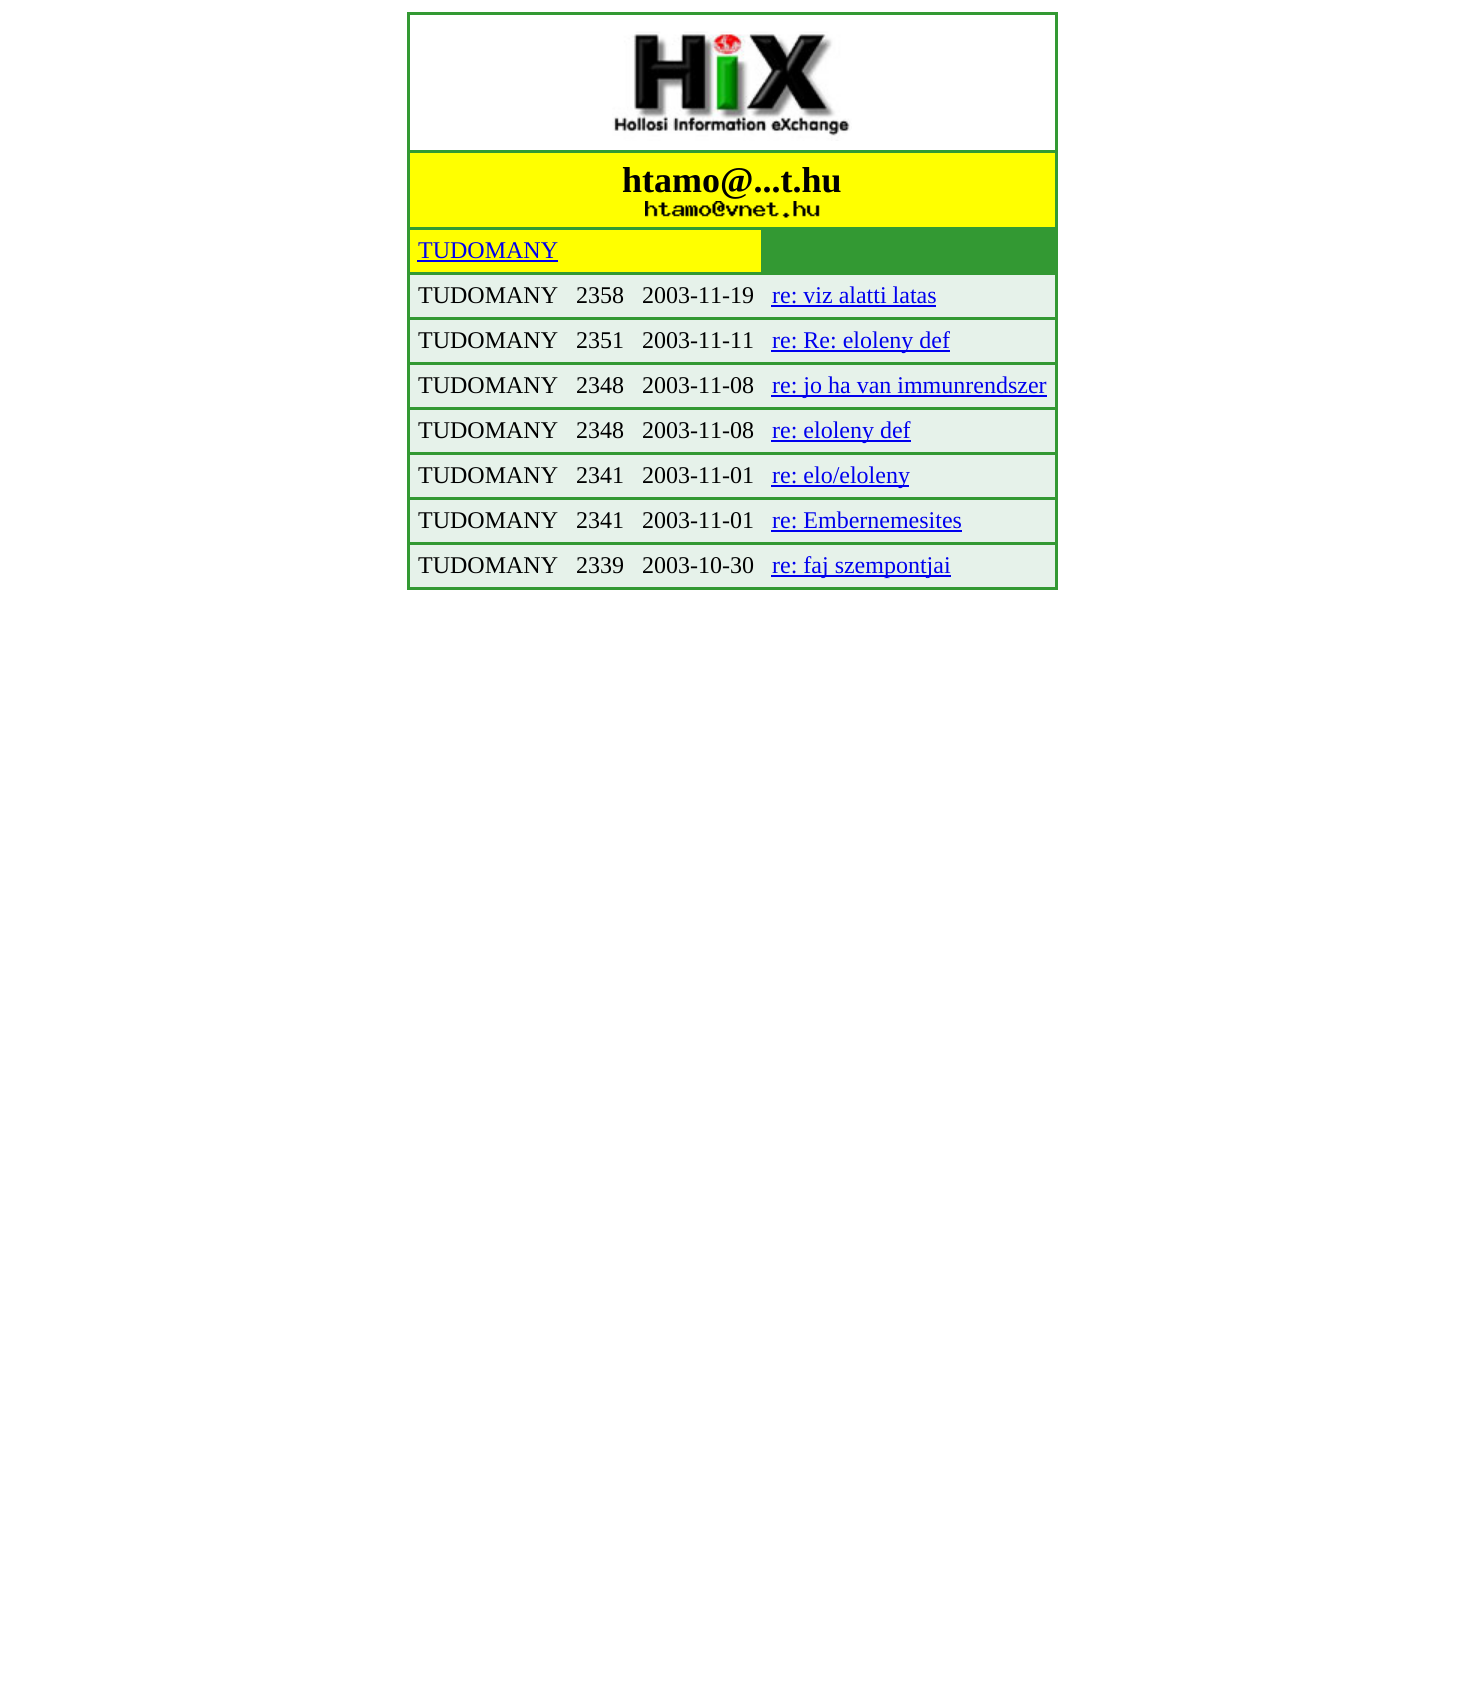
import math
import cairo

surface = cairo.ImageSurface(cairo.FORMAT_RGB24, 1464, 1707)
cr = cairo.Context(surface)
options = cairo.FontOptions()
options.set_hint_metrics(cairo.HINT_METRICS_OFF)
options.set_hint_style(cairo.HINT_STYLE_NONE)
cr.set_font_options(options)
cr.set_miter_limit(4)


def rgb(code):
    cr.set_source_rgb(*(v / 255 for v in bytes.fromhex(code[-6:])))


def image(path, x, y, w, h):
    cr.save()
    cr.set_source_surface(cairo.ImageSurface.create_from_png(path), x, y)
    cr.rectangle(x, y, w, h)
    cr.fill()
    cr.restore()


rgb("#ffffff")
cr.paint()
rgb("#339933")
cr.rectangle(407, 12, 651, 578)
cr.fill()
rgb("#ffffff")
cr.rectangle(410, 15, 645, 135)
cr.fill()
image("img/1.png", 612, 31, 240, 110)
rgb("#ffff00")
cr.rectangle(410, 153, 645, 74)
cr.fill()
image("img/2.png", 645, 201, 175, 17)
for x, y, w, h, color in [
    (410, 230, 351, 42, "#ffff00"),
    (417, 260, 141, 2, "#0000ee"),
    (410, 275, 645, 42, "#e6f2ea"),
    (771, 305, 165, 2, "#0000ee"),
    (410, 320, 645, 42, "#e6f2ea"),
    (771, 350, 179, 2, "#0000ee"),
    (410, 365, 645, 42, "#e6f2ea"),
    (771, 395, 276, 2, "#0000ee"),
    (410, 410, 645, 42, "#e6f2ea"),
    (771, 440, 140, 2, "#0000ee"),
    (410, 455, 645, 42, "#e6f2ea"),
    (771, 485, 138, 2, "#0000ee"),
    (410, 500, 645, 42, "#e6f2ea"),
    (771, 530, 191, 2, "#0000ee"),
    (410, 545, 645, 42, "#e6f2ea"),
    (771, 575, 180, 2, "#0000ee"),
]:
    rgb(color)
    cr.rectangle(x, y, w, h)
    cr.fill()
cr.select_font_face("Liberation Serif", cairo.FONT_SLANT_NORMAL, cairo.FONT_WEIGHT_BOLD)
cr.set_font_size(36)
rgb("#000000")
cr.move_to(622, 192)
cr.show_text("htamo@...t.hu")
cr.select_font_face("Liberation Serif")
cr.set_font_size(24)
rgb("#0000ee")
cr.move_to(418, 258)
cr.show_text("TUDOMANY")
rgb("#000000")
for x, y, s in [
    (418, 303, "TUDOMANY"),
    (576, 303, "2358"),
    (642, 303, "2003-11-19"),
]:
    cr.move_to(x, y)
    cr.show_text(s)
rgb("#0000ee")
cr.move_to(772, 303)
cr.show_text("re: viz alatti latas")
rgb("#000000")
for x, y, s in [
    (418, 348, "TUDOMANY"),
    (576, 348, "2351"),
    (642, 348, "2003-11-11"),
]:
    cr.move_to(x, y)
    cr.show_text(s)
rgb("#0000ee")
cr.move_to(772, 348)
cr.show_text("re: Re: eloleny def")
rgb("#000000")
for x, y, s in [
    (418, 393, "TUDOMANY"),
    (576, 393, "2348"),
    (642, 393, "2003-11-08"),
]:
    cr.move_to(x, y)
    cr.show_text(s)
rgb("#0000ee")
cr.move_to(772, 393)
cr.show_text("re: jo ha van immunrendszer")
rgb("#000000")
for x, y, s in [
    (418, 438, "TUDOMANY"),
    (576, 438, "2348"),
    (642, 438, "2003-11-08"),
]:
    cr.move_to(x, y)
    cr.show_text(s)
rgb("#0000ee")
cr.move_to(772, 438)
cr.show_text("re: eloleny def")
rgb("#000000")
for x, y, s in [
    (418, 483, "TUDOMANY"),
    (576, 483, "2341"),
    (642, 483, "2003-11-01"),
]:
    cr.move_to(x, y)
    cr.show_text(s)
rgb("#0000ee")
cr.move_to(772, 483)
cr.show_text("re: elo/eloleny")
rgb("#000000")
for x, y, s in [
    (418, 528, "TUDOMANY"),
    (576, 528, "2341"),
    (642, 528, "2003-11-01"),
]:
    cr.move_to(x, y)
    cr.show_text(s)
rgb("#0000ee")
cr.move_to(772, 528)
cr.show_text("re: Embernemesites")
rgb("#000000")
for x, y, s in [
    (418, 573, "TUDOMANY"),
    (576, 573, "2339"),
    (642, 573, "2003-10-30"),
]:
    cr.move_to(x, y)
    cr.show_text(s)
rgb("#0000ee")
cr.move_to(772, 573)
cr.show_text("re: faj szempontjai")
surface.write_to_png("page.png")
